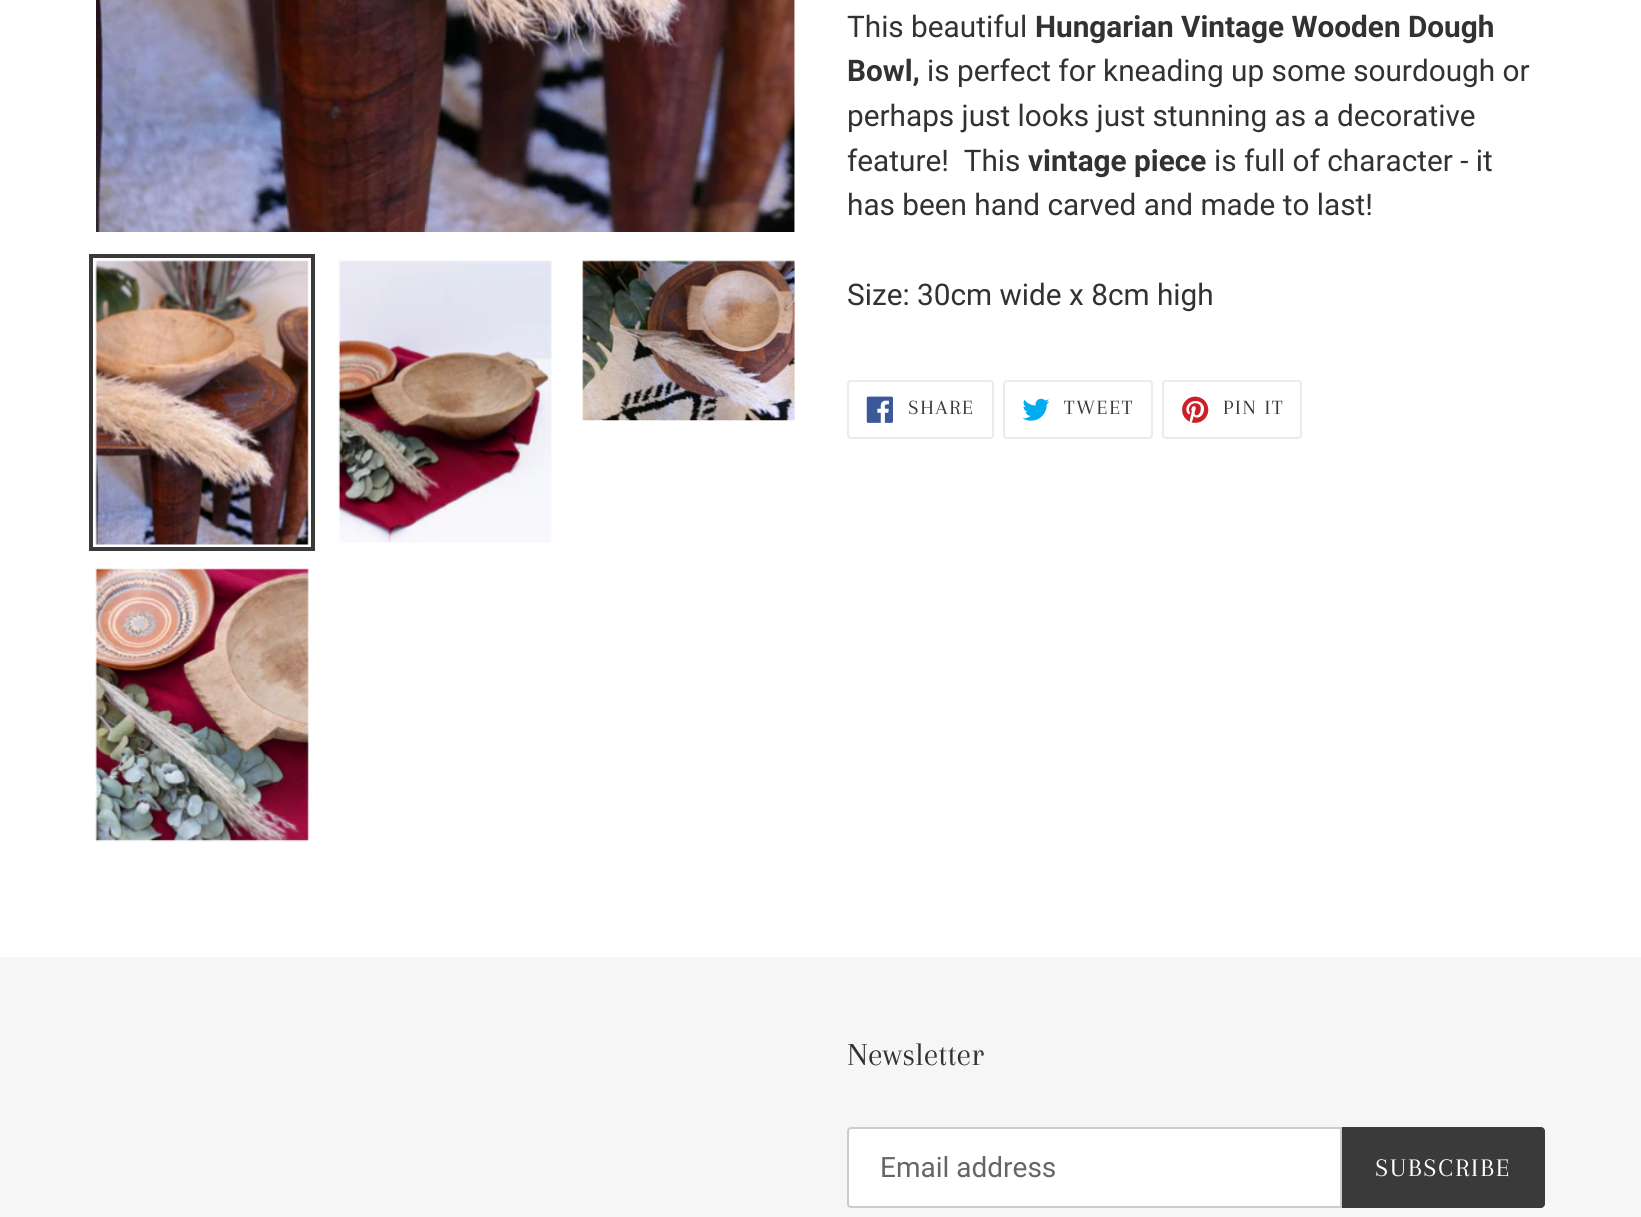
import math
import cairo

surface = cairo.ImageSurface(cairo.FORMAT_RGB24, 1641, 1217)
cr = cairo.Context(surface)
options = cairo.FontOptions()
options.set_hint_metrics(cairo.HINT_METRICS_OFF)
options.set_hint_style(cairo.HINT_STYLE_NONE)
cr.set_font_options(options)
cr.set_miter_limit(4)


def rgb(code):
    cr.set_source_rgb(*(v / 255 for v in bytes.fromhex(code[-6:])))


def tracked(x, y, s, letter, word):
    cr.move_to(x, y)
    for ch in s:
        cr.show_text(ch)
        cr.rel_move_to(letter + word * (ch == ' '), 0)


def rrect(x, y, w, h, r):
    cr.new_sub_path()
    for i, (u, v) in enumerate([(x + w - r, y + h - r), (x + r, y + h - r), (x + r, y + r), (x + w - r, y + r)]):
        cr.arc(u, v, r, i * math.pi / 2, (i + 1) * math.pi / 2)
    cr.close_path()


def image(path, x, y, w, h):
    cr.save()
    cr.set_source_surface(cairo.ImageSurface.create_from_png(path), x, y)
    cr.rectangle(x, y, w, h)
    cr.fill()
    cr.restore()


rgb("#ffffff")
cr.paint()
image("img/1.png", 96, 0, 699, 232)
cr.rectangle(91, 256, 222, 293)
rgb("#3a3a3a")
cr.set_line_width(4)
cr.stroke()
image("img/2.png", 95, 260, 214, 285)
image("img/3.png", 338, 260, 214, 283)
image("img/4.png", 582, 260, 213, 161)
image("img/5.png", 95, 568, 214, 274)
rrect(848, 381, 145, 57, 3)
rgb("#ebebeb")
cr.set_line_width(2)
cr.stroke()
image("img/6.png", 866, 396, 27, 27)
rrect(1004, 381, 148, 57, 3)
cr.stroke()
image("img/7.png", 1022, 398, 28, 23)
rrect(1163, 381, 138, 57, 3)
cr.stroke()
image("img/8.png", 1182, 396, 27, 27)
rgb("#f6f6f6")
cr.rectangle(0, 957, 1641, 260)
cr.fill()
rgb("#ffffff")
cr.new_path()
cr.move_to(851, 1128)
cr.line_to(1341, 1128)
cr.line_to(1341, 1207)
cr.line_to(851, 1207)
cr.curve_to(849.5, 1207, 848, 1205.5, 848, 1204)
cr.line_to(848, 1131)
cr.curve_to(848, 1129.5, 849.5, 1128, 851, 1128)
cr.close_path()
cr.fill_preserve()
rgb("#cccccc")
cr.stroke()
rgb("#3a3a3a")
cr.new_path()
cr.move_to(1342, 1127)
cr.line_to(1541, 1127)
cr.curve_to(1543, 1127, 1545, 1129, 1545, 1131)
cr.line_to(1545, 1204)
cr.curve_to(1545, 1206, 1543, 1208, 1541, 1208)
cr.line_to(1342, 1208)
cr.close_path()
cr.fill()
cr.select_font_face("Roboto")
cr.set_font_size(29.75)
rgb("#333232")
cr.move_to(847, 37)
cr.show_text("This beautiful")
cr.select_font_face("Roboto", cairo.FONT_SLANT_NORMAL, cairo.FONT_WEIGHT_BOLD)
cr.move_to(1035, 37)
cr.show_text("Hungarian Vintage Wooden Dough")
cr.move_to(847, 81)
cr.show_text("Bowl,")
cr.select_font_face("Roboto")
for x, y, s in [
    (927, 81, "is perfect for kneading up some sourdough or"),
    (847, 126, "perhaps just looks just stunning as a decorative"),
    (847, 171, "feature!  This"),
]:
    cr.move_to(x, y)
    cr.show_text(s)
cr.select_font_face("Roboto", cairo.FONT_SLANT_NORMAL, cairo.FONT_WEIGHT_BOLD)
cr.move_to(1028, 171)
cr.show_text("vintage piece")
cr.select_font_face("Roboto")
for x, y, s in [
    (1214, 171, "is full of character - it"),
    (847, 215, "has been hand carved and made to last!"),
    (847, 305, "Size: 30cm wide x 8cm high"),
]:
    cr.move_to(x, y)
    cr.show_text(s)
cr.select_font_face("Arapey")
cr.set_font_size(21)
rgb("#3a3a3a")
for x, y, s in [
    (908, 414, "SHARE"),
    (1064, 414, "TWEET"),
    (1223, 414, "PIN IT"),
]:
    tracked(x, y, s, 1.75, 0)
cr.set_font_size(33.25)
rgb("#333232")
cr.move_to(847, 1065)
cr.show_text("Newsletter")
cr.select_font_face("Roboto")
cr.set_font_size(28)
rgb("#666666")
cr.move_to(880, 1177)
cr.show_text("Email address")
cr.select_font_face("Arapey")
cr.set_font_size(26.25)
rgb("#ffffff")
tracked(1375, 1176, "SUBSCRIBE", 2, 0)
surface.write_to_png("page.png")
